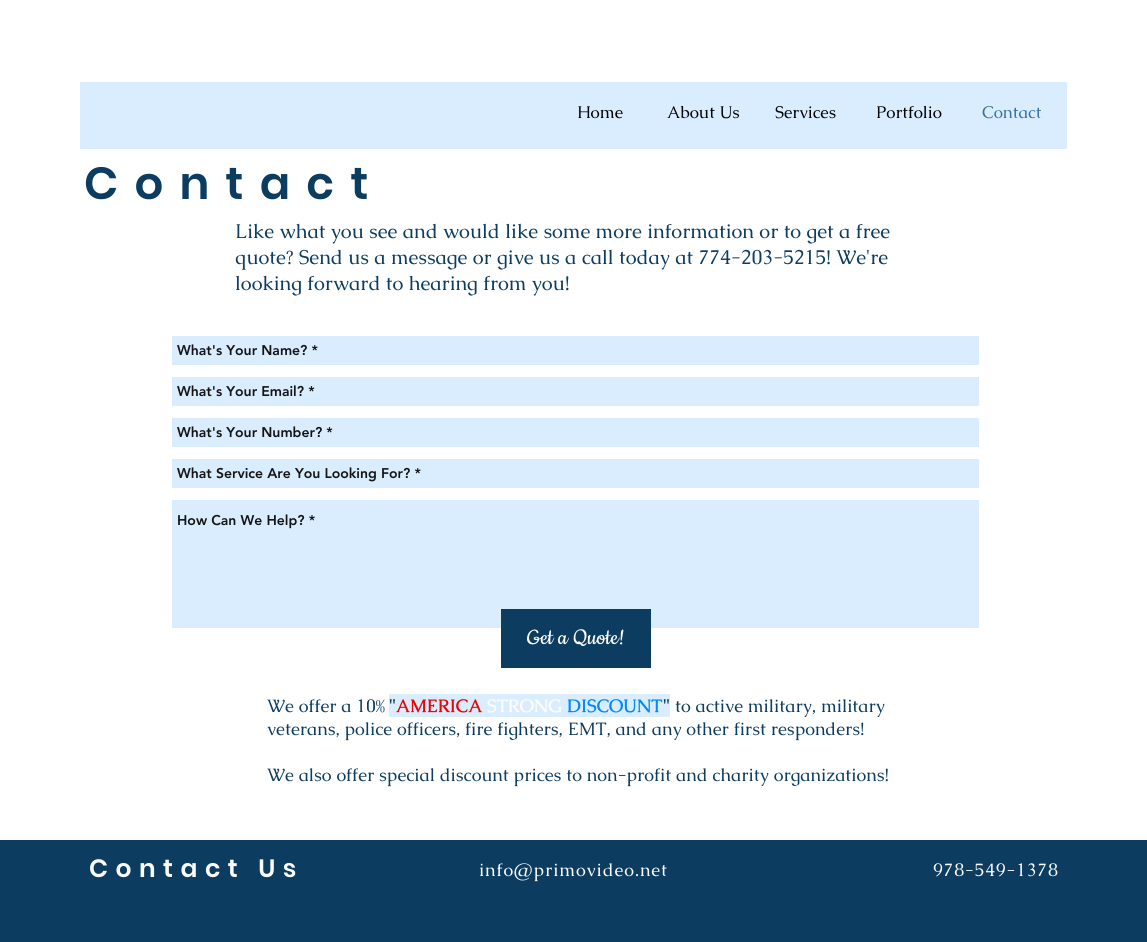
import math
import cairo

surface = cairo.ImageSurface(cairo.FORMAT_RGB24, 1147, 942)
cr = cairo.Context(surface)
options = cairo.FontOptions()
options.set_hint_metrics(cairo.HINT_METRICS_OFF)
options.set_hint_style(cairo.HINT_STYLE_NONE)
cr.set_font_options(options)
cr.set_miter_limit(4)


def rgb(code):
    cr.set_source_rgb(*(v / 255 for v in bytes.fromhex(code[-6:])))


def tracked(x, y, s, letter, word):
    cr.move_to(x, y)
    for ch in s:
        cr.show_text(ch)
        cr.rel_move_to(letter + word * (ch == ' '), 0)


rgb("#ffffff")
cr.paint()
for x, y, w, h, color in [
    (80, 82, 987, 67, "#daedff"),
    (172, 336, 807, 29, "#daedff"),
    (172, 377, 807, 29, "#daedff"),
    (172, 418, 807, 29, "#daedff"),
    (172, 459, 807, 29, "#daedff"),
    (172, 500, 807, 128, "#daedff"),
    (501, 609, 150, 59, "#0c3c60"),
    (389, 694, 281, 23, "#daedff"),
    (0, 840, 1147, 102, "#0c3c60"),
]:
    rgb(color)
    cr.rectangle(x, y, w, h)
    cr.fill()
cr.select_font_face("Caudex")
cr.set_font_size(17)
rgb("#000000")
for x, y, s in [
    (577, 118, "Home"),
    (667, 118, "About Us"),
    (775, 118, "Services"),
    (876, 118, "Portfolio"),
]:
    cr.move_to(x, y)
    cr.show_text(s)
rgb("#39729b")
cr.move_to(982, 118)
cr.show_text("Contact")
cr.select_font_face("Poppins SemiBold")
cr.set_font_size(45)
rgb("#0c3c60")
tracked(84, 199, "Contact", 16.25, 0)
cr.select_font_face("Caudex")
cr.set_font_size(20)
for x, y, s in [
    (235, 238, "Like what you see and would like some more information or to get a free"),
    (235, 264, "quote? Send us a message or give us a call today at 774-203-5215! We're"),
    (235, 290, "looking forward to hearing from you!"),
]:
    cr.move_to(x, y)
    cr.show_text(s)
cr.select_font_face("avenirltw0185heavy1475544 Black")
cr.set_font_size(14)
rgb("#141414")
for x, y, s in [
    (177, 355, "What's Your Name? *"),
    (177, 396, "What's Your Email? *"),
    (177, 437, "What's Your Number? *"),
    (177, 478, "What Service Are You Looking For? *"),
    (177, 525, "How Can We Help? *"),
]:
    cr.move_to(x, y)
    cr.show_text(s)
cr.select_font_face("Cookie")
cr.set_font_size(25)
rgb("#fcfcfc")
cr.move_to(527, 644)
cr.show_text("Get a Quote!")
cr.select_font_face("Caudex")
cr.set_font_size(18)
rgb("#0c3c60")
cr.move_to(267, 712)
cr.show_text("We offer a 10%")
cr.select_font_face("Caudex", cairo.FONT_SLANT_NORMAL, cairo.FONT_WEIGHT_BOLD)
cr.move_to(389, 712)
cr.show_text("\"")
rgb("#e80505")
cr.move_to(396, 712)
cr.show_text("AMERICA")
rgb("#fcfcfc")
cr.move_to(487, 712)
cr.show_text("STRONG")
rgb("#008afc")
cr.move_to(567, 712)
cr.show_text("DISCOUNT")
rgb("#0c3c60")
cr.move_to(663, 712)
cr.show_text("\"")
cr.select_font_face("Caudex")
for x, y, s in [
    (675, 712, "to active military, military"),
    (267, 735, "veterans, police officers, fire fighters, EMT, and any other first responders!"),
    (267, 781, "We also offer special discount prices to non-profit and charity organizations!"),
]:
    cr.move_to(x, y)
    cr.show_text(s)
cr.select_font_face("Poppins SemiBold")
cr.set_font_size(25)
rgb("#fcfcfc")
tracked(89, 877, "Contact Us", 7.5, 0)
cr.select_font_face("Caudex")
cr.set_font_size(18)
tracked(479, 876, "info@primovideo.net", 0.9, 0)
tracked(933, 876, "978-549-1378", 0.9, 0)
surface.write_to_png("page.png")
